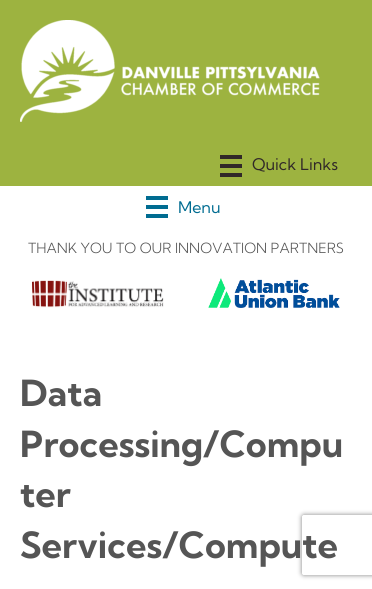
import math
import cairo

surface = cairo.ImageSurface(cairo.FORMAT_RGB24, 372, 589)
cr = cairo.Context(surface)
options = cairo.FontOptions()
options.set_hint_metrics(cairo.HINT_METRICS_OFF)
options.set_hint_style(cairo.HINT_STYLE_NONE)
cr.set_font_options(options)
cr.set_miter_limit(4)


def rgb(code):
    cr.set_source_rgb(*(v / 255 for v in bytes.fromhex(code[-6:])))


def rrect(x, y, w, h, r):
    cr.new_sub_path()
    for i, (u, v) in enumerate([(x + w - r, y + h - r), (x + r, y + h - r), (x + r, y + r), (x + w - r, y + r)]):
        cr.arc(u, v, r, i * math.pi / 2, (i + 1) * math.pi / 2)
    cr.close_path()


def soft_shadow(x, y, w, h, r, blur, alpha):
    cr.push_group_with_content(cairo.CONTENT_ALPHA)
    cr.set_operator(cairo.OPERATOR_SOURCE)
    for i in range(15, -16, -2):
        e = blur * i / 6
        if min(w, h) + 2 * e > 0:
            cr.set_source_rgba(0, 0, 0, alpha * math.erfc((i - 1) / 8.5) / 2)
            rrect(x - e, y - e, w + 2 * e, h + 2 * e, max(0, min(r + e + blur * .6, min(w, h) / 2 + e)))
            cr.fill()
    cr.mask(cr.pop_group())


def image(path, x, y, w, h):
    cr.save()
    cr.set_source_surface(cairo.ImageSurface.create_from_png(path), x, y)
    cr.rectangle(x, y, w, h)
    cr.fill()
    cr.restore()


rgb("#ffffff")
cr.paint()
rgb("#9db340")
cr.rectangle(0, 0, 372, 186)
cr.fill()
image("img/1.png", 20, 20, 300, 102)
for x, y, w, h, color in [
    (220, 155, 22, 4, "#302828"),
    (220, 164, 22, 4, "#302828"),
    (220, 173, 22, 4, "#302828"),
    (146, 196, 22, 4, "#006c91"),
    (146, 205, 22, 4, "#006c91"),
    (146, 214, 22, 4, "#006c91"),
]:
    rgb(color)
    cr.rectangle(x, y, w, h)
    cr.fill()
image("img/2.png", 32, 280, 132, 28)
image("img/3.png", 208, 278, 132, 30)
cr.save()
cr.set_fill_rule(cairo.FILL_RULE_EVEN_ODD)
cr.new_path()
cr.move_to(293, 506)
cr.line_to(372, 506)
cr.line_to(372, 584)
cr.line_to(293, 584)
cr.close_path()
cr.move_to(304, 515)
cr.line_to(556, 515)
cr.curve_to(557, 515, 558, 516, 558, 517)
cr.line_to(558, 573)
cr.curve_to(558, 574, 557, 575, 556, 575)
cr.line_to(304, 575)
cr.curve_to(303, 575, 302, 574, 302, 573)
cr.line_to(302, 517)
cr.curve_to(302, 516, 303, 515, 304, 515)
cr.close_path()
cr.clip()
rgb("#808080")
soft_shadow(302, 515, 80, 60, 2, 2.5, 1)
cr.restore()
cr.select_font_face("Kumbh Sans")
cr.set_font_size(16)
rgb("#302828")
cr.move_to(252, 170)
cr.show_text("Quick Links")
rgb("#006c91")
cr.move_to(178, 213)
cr.show_text("Menu")
cr.select_font_face("Kumbh Sans Light")
cr.set_font_size(14)
rgb("#555555")
cr.move_to(28, 253)
cr.show_text("THANK YOU TO OUR INNOVATION PARTNERS")
cr.select_font_face("Kumbh Sans", cairo.FONT_SLANT_NORMAL, cairo.FONT_WEIGHT_BOLD)
cr.set_font_size(36)
for x, y, s in [
    (20, 406, "Data"),
    (20, 457, "Processing/Compu"),
    (20, 507, "ter"),
    (20, 558, "Services/Compute"),
]:
    cr.move_to(x, y)
    cr.show_text(s)
surface.write_to_png("page.png")
